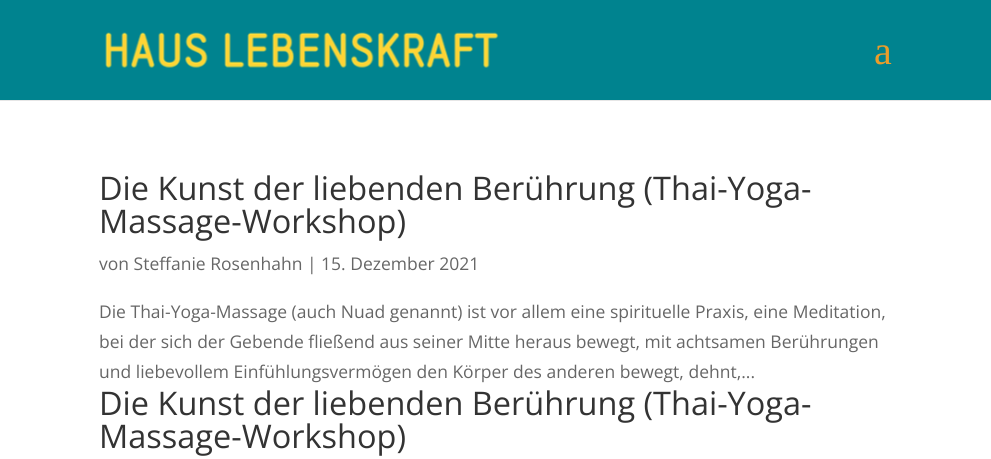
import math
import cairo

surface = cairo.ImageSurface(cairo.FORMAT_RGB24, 991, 459)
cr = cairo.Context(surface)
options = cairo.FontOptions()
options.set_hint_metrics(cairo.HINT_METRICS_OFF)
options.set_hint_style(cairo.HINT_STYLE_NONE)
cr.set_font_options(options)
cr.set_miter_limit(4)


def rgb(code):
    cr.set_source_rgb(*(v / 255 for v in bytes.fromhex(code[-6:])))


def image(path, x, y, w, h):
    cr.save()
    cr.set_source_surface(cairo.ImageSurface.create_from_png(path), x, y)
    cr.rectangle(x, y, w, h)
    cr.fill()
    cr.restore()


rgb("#ffffff")
cr.paint()
rgb("#e6e6e6")
cr.rectangle(0, 100, 991, 1)
cr.fill()
rgb("#00838f")
cr.rectangle(0, 0, 991, 100)
cr.fill()
image("img/1.png", 105, 32, 394, 36)
cr.select_font_face("Liberation Serif")
cr.set_font_size(40)
rgb("#ea9d2a")
cr.move_to(874, 64)
cr.show_text("a")
cr.select_font_face("Open Sans")
cr.set_font_size(32.5)
rgb("#333333")
cr.move_to(99, 200)
cr.show_text("Die Kunst der liebenden Berührung (Thai-Yoga-")
cr.move_to(99, 233)
cr.show_text("Massage-Workshop)")
cr.set_font_size(17.5)
rgb("#666666")
for x, y, s in [
    (99, 270, "von Steffanie Rosenhahn | 15. Dezember 2021"),
    (99, 318, "Die Thai-Yoga-Massage (auch Nuad genannt) ist vor allem eine spirituelle Praxis, eine Meditation,"),
    (99, 348, "bei der sich der Gebende fließend aus seiner Mitte heraus bewegt, mit achtsamen Berührungen"),
    (99, 378, "und liebevollem Einfühlungsvermögen den Körper des anderen bewegt, dehnt,..."),
]:
    cr.move_to(x, y)
    cr.show_text(s)
cr.set_font_size(32.5)
rgb("#333333")
cr.move_to(99, 415)
cr.show_text("Die Kunst der liebenden Berührung (Thai-Yoga-")
cr.move_to(99, 448)
cr.show_text("Massage-Workshop)")
surface.write_to_png("page.png")
